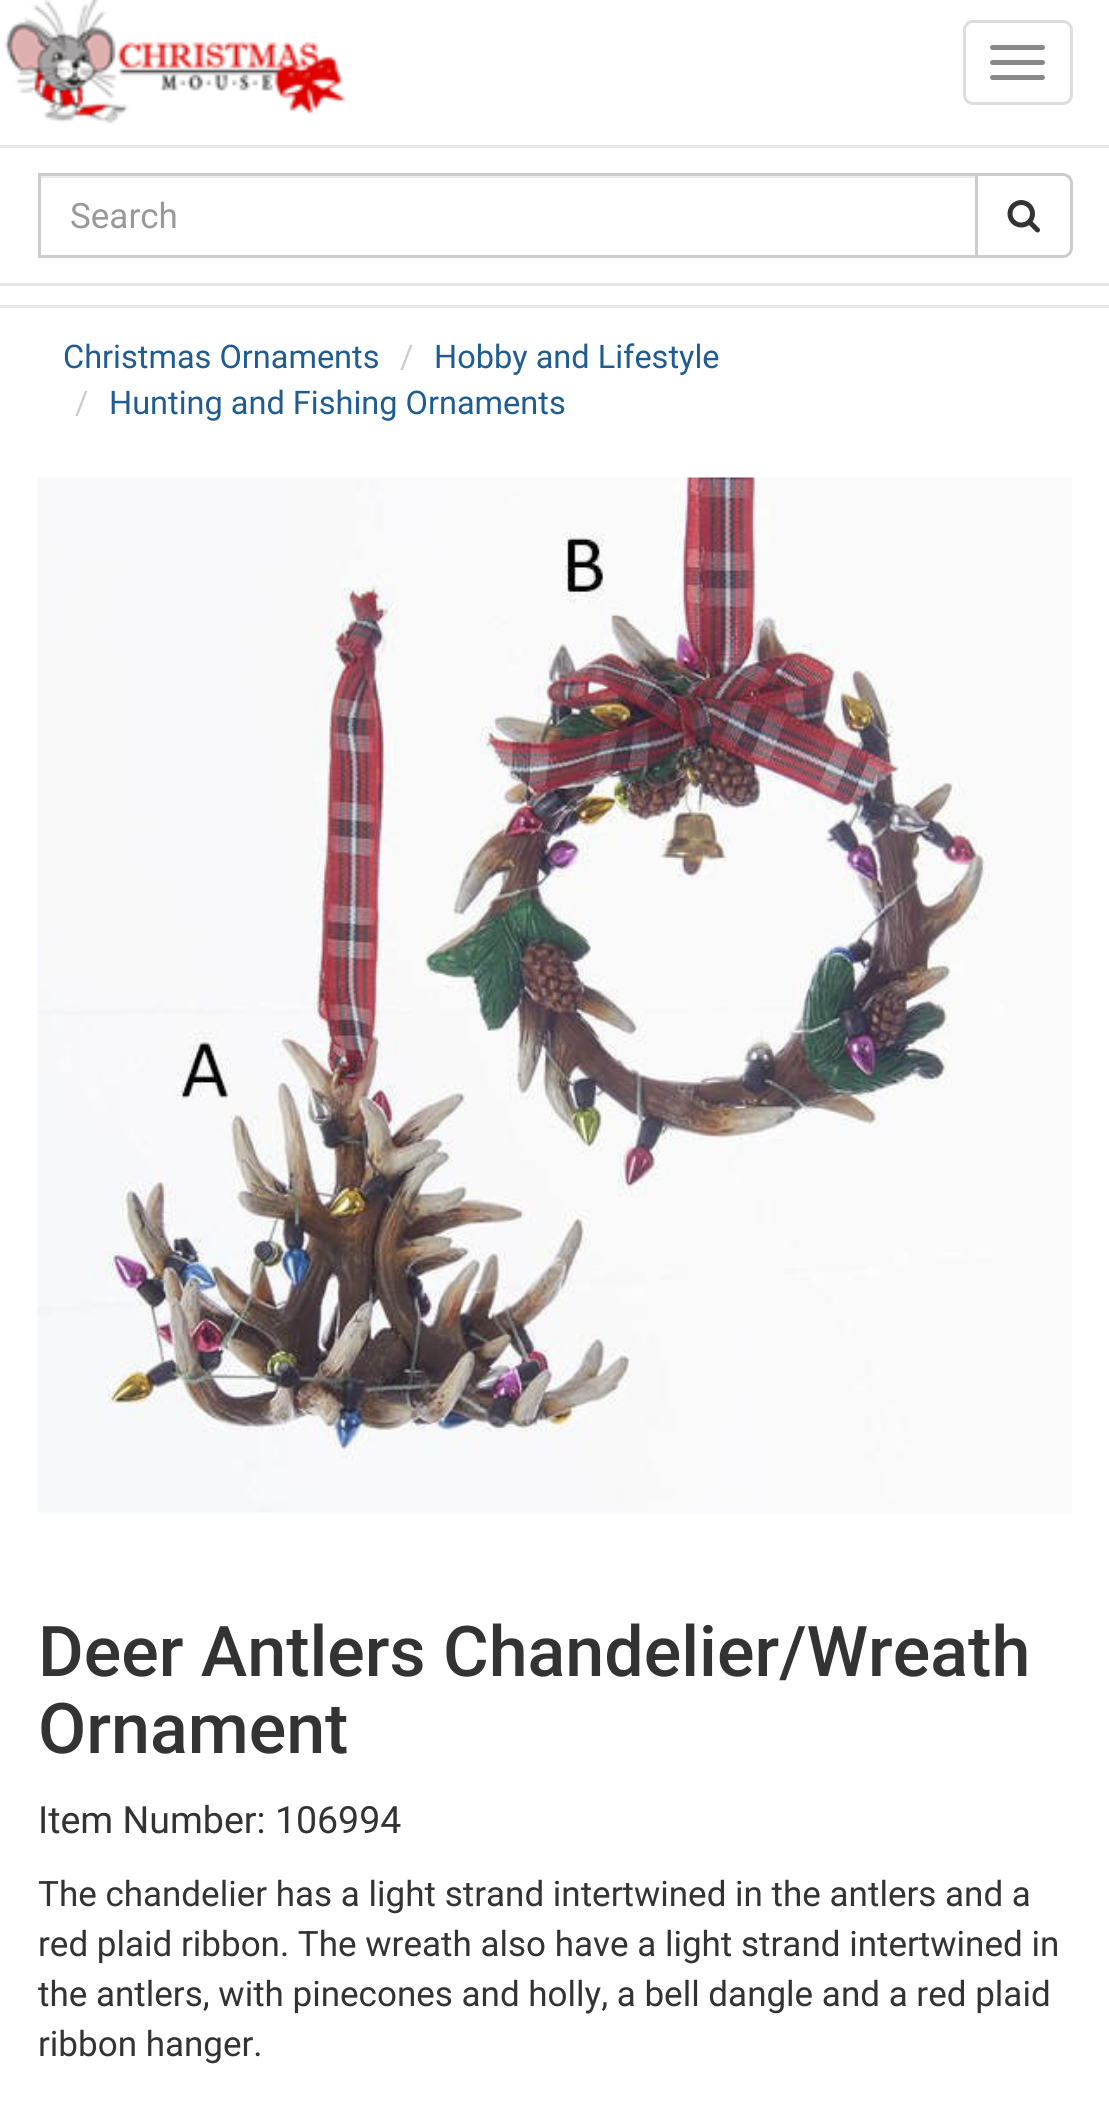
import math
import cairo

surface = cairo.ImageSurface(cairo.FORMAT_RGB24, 1109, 2113)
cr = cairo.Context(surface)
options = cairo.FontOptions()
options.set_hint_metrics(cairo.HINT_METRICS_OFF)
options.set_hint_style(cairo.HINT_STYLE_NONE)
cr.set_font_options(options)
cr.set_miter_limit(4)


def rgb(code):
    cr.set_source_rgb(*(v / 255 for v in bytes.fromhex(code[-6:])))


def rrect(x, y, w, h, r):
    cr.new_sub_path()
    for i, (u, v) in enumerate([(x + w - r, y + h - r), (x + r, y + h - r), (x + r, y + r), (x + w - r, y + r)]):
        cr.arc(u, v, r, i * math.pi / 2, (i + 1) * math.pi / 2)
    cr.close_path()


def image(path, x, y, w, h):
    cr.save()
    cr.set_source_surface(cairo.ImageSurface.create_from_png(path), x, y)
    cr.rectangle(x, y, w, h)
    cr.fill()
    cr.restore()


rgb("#ffffff")
cr.paint()
rgb("#e7e7e7")
cr.rectangle(0, 305, 1109, 3)
cr.fill()
image("img/1.png", 4, 0, 342, 124)
rrect(964.5, 21.5, 107, 82, 8.5)
rgb("#dddddd")
cr.set_line_width(3)
cr.stroke()
rgb("#888888")
rrect(990, 45, 55, 5, 2.5)
cr.fill()
rrect(990, 60, 55, 5, 2.5)
cr.fill()
rrect(990, 75, 55, 5, 2.5)
cr.fill()
for x, y, w, h, color in [
    (0, 145, 1109, 3, "#e7e7e7"),
    (0, 283, 1109, 3, "#e7e7e7"),
    (40, 176, 935, 2, "#ececec"),
]:
    rgb(color)
    cr.rectangle(x, y, w, h)
    cr.fill()
cr.rectangle(39.5, 174.5, 937, 82)
rgb("#cccccc")
cr.stroke()
rgb("#ffffff")
cr.new_path()
cr.move_to(976.5, 174.5)
cr.line_to(1063, 174.5)
cr.curve_to(1067.5, 174.5, 1071.5, 178.5, 1071.5, 183)
cr.line_to(1071.5, 248)
cr.curve_to(1071.5, 252.5, 1067.5, 256.5, 1063, 256.5)
cr.line_to(976.5, 256.5)
cr.close_path()
cr.fill_preserve()
rgb("#cccccc")
cr.stroke()
image("img/2.png", 1007, 200, 33, 33)
image("img/3.png", 37, 477, 1035, 1036)
cr.select_font_face("Roboto")
cr.set_font_size(35)
rgb("#999999")
cr.move_to(70, 228)
cr.show_text("Search")
cr.set_font_size(32.5)
rgb("#1f5c91")
cr.move_to(63, 368)
cr.show_text("Christmas Ornaments")
rgb("#cccccc")
cr.move_to(400, 368)
cr.show_text("/")
rgb("#1f5c91")
cr.move_to(434, 368)
cr.show_text("Hobby and Lifestyle")
rgb("#cccccc")
cr.move_to(75, 414)
cr.show_text("/")
rgb("#1f5c91")
cr.move_to(109, 414)
cr.show_text("Hunting and Fishing Ornaments")
cr.select_font_face("Roboto Medium")
cr.set_font_size(70)
rgb("#333333")
cr.move_to(38, 1676)
cr.show_text("Deer Antlers Chandelier/Wreath")
cr.move_to(38, 1753)
cr.show_text("Ornament")
cr.select_font_face("Roboto")
cr.set_font_size(37.5)
cr.move_to(38, 1833)
cr.show_text("Item Number: 106994")
cr.set_font_size(35)
for x, y, s in [
    (38, 1906, "The chandelier has a light strand intertwined in the antlers and a"),
    (38, 1956, "red plaid ribbon. The wreath also have a light strand intertwined in"),
    (38, 2006, "the antlers, with pinecones and holly, a bell dangle and a red plaid"),
    (38, 2056, "ribbon hanger."),
]:
    cr.move_to(x, y)
    cr.show_text(s)
surface.write_to_png("page.png")
